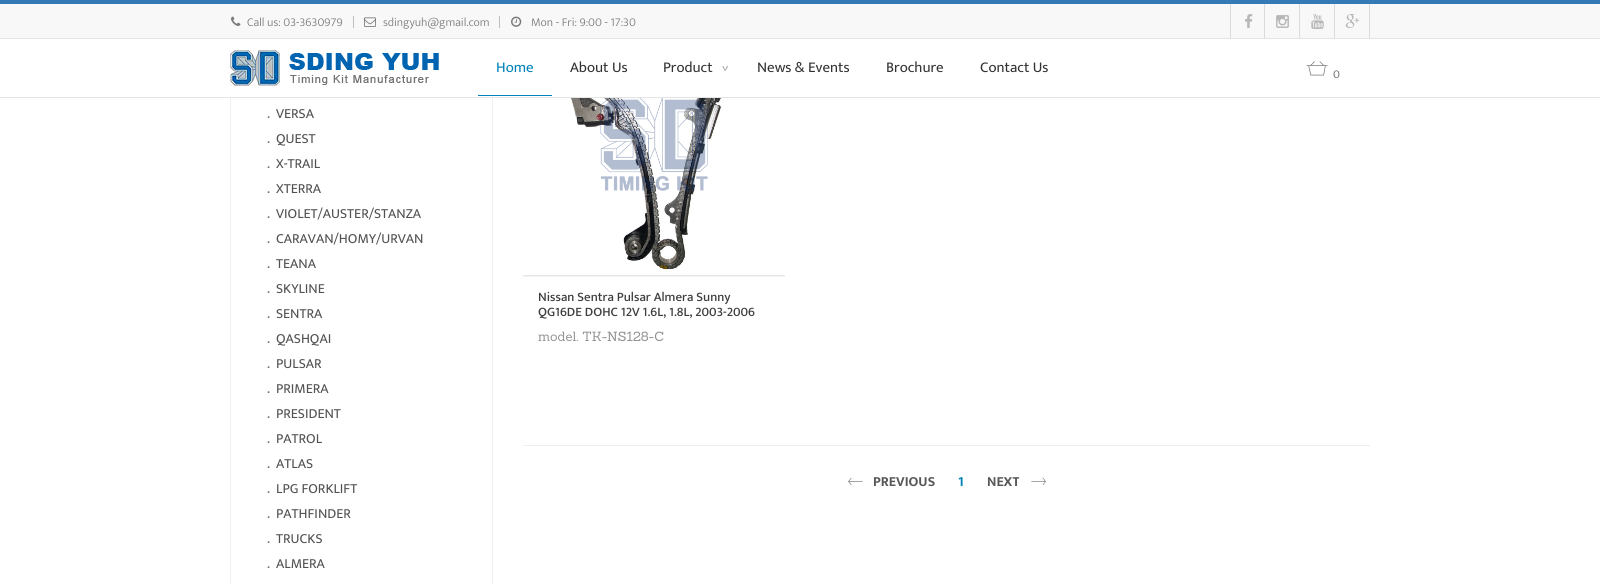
import math
import cairo

surface = cairo.ImageSurface(cairo.FORMAT_RGB24, 1600, 584)
cr = cairo.Context(surface)
options = cairo.FontOptions()
options.set_hint_metrics(cairo.HINT_METRICS_OFF)
options.set_hint_style(cairo.HINT_STYLE_NONE)
cr.set_font_options(options)
cr.set_miter_limit(4)


def rgb(code):
    cr.set_source_rgb(*(v / 255 for v in bytes.fromhex(code[-6:])))


def rrect(x, y, w, h, r):
    cr.new_sub_path()
    for i, (u, v) in enumerate([(x + w - r, y + h - r), (x + r, y + h - r), (x + r, y + r), (x + w - r, y + r)]):
        cr.arc(u, v, r, i * math.pi / 2, (i + 1) * math.pi / 2)
    cr.close_path()


def soft_shadow(x, y, w, h, r, blur, alpha):
    cr.push_group_with_content(cairo.CONTENT_ALPHA)
    cr.set_operator(cairo.OPERATOR_SOURCE)
    for i in range(15, -16, -2):
        e = blur * i / 6
        if min(w, h) + 2 * e > 0:
            cr.set_source_rgba(0, 0, 0, alpha * math.erfc((i - 1) / 8.5) / 2)
            rrect(x - e, y - e, w + 2 * e, h + 2 * e, max(0, min(r + e + blur * .6, min(w, h) / 2 + e)))
            cr.fill()
    cr.mask(cr.pop_group())


def image(path, x, y, w, h):
    cr.save()
    cr.set_source_surface(cairo.ImageSurface.create_from_png(path), x, y)
    cr.rectangle(x, y, w, h)
    cr.fill()
    cr.restore()


rgb("#ffffff")
cr.paint()
cr.rectangle(230.5, -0.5, 262, 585)
rgb("#efefef")
cr.set_line_width(1)
cr.stroke()
cr.save()
cr.rectangle(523, 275, 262, 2)
cr.clip()
rgb("#000000")
soft_shadow(523, 14, 262, 262, 0, 1, 0.14)
cr.restore()
for x, y, w, h, color in [
    (230, 39, 556, 58, "#ffffff"),
    (0, 0, 1600, 4, "#337ab7"),
    (0, 97, 1600, 1, "#e4e4e4"),
    (0, 4, 1600, 34, "#f8f8f8"),
    (0, 38, 1600, 1, "#e4e4e4"),
]:
    rgb(color)
    cr.rectangle(x, y, w, h)
    cr.fill()
image("img/1.png", 231, 16, 10, 10)
rgb("#bebebe")
cr.rectangle(353, 15, 1, 13)
cr.fill()
rgb("#eeeeee")
cr.rectangle(353, 15, 1, 1)
cr.fill()
image("img/2.png", 364, 17, 12, 10)
rgb("#bebebe")
cr.rectangle(499, 15, 1, 13)
cr.fill()
rgb("#eeeeee")
cr.rectangle(499, 15, 1, 1)
cr.fill()
image("img/3.png", 511, 16, 11, 11)
rgb("#dbdbdb")
cr.rectangle(1264, 4, 1, 34)
cr.fill()
cr.rectangle(1230, 4, 1, 34)
cr.fill()
image("img/4.png", 1245, 14, 8, 14)
cr.rectangle(1299, 4, 1, 34)
cr.fill()
image("img/5.png", 1276, 15, 13, 13)
cr.rectangle(1334, 4, 1, 34)
cr.fill()
image("img/6.png", 1311, 14, 13, 15)
cr.rectangle(1369, 4, 1, 34)
cr.fill()
image("img/7.png", 1345, 14, 14, 14)
image("img/8.png", 230, 50, 209, 36)
rgb("#0082b9")
cr.rectangle(478, 95, 74, 1)
cr.fill()
image("img/9.png", 1306, 61, 22, 15)
image("img/10.png", 565, 98, 174, 174)
rgb("#eeeeee")
cr.rectangle(523, 445, 847, 1)
cr.fill()
image("img/11.png", 848, 477, 15, 9)
image("img/12.png", 1031, 477, 15, 8)
cr.select_font_face("Mukta Vaani Light")
cr.set_font_size(12)
rgb("#7b7b7b")
for x, y, s in [
    (247, 26, "Call us: 03-3630979"),
    (383, 26, "sdingyuh@gmail.com"),
    (531, 26, "Mon - Fri: 9:00 - 17:30"),
]:
    cr.move_to(x, y)
    cr.show_text(s)
cr.select_font_face("Mukta Vaani")
cr.set_font_size(15)
rgb("#0082b9")
cr.move_to(496, 72)
cr.show_text("Home")
rgb("#333333")
cr.move_to(570, 72)
cr.show_text("About Us")
cr.move_to(663, 72)
cr.show_text("Product")
cr.select_font_face("Mukta Vaani", cairo.FONT_SLANT_NORMAL, cairo.FONT_WEIGHT_BOLD)
rgb("#adadad")
cr.save()
cr.translate(729, 60)
cr.rotate(180 * math.pi / 180)
cr.move_to(0, 0)
cr.show_text("^")
cr.restore()
cr.select_font_face("Mukta Vaani")
rgb("#333333")
for x, y, s in [
    (757, 72, "News & Events"),
    (886, 72, "Brochure"),
    (980, 72, "Contact Us"),
]:
    cr.move_to(x, y)
    cr.show_text(s)
cr.set_font_size(12)
rgb("#7b7b7b")
cr.move_to(1333, 78)
cr.show_text("0")
cr.select_font_face("WenQuanYi Zen Hei Medium")
cr.set_font_size(15)
rgb("#737373")
cr.move_to(261, 118)
cr.show_text("．")
cr.select_font_face("Mukta Vaani")
cr.set_font_size(14)
rgb("#525252")
cr.move_to(276, 118)
cr.show_text("VERSA")
cr.select_font_face("WenQuanYi Zen Hei Medium")
cr.set_font_size(15)
rgb("#737373")
cr.move_to(261, 143)
cr.show_text("．")
cr.select_font_face("Mukta Vaani")
cr.set_font_size(14)
rgb("#525252")
cr.move_to(276, 143)
cr.show_text("QUEST")
cr.select_font_face("WenQuanYi Zen Hei Medium")
cr.set_font_size(15)
rgb("#737373")
cr.move_to(261, 168)
cr.show_text("．")
cr.select_font_face("Mukta Vaani")
cr.set_font_size(14)
rgb("#525252")
cr.move_to(276, 168)
cr.show_text("X-TRAIL")
cr.select_font_face("WenQuanYi Zen Hei Medium")
cr.set_font_size(15)
rgb("#737373")
cr.move_to(261, 193)
cr.show_text("．")
cr.select_font_face("Mukta Vaani")
cr.set_font_size(14)
rgb("#525252")
cr.move_to(276, 193)
cr.show_text("XTERRA")
cr.select_font_face("WenQuanYi Zen Hei Medium")
cr.set_font_size(15)
rgb("#737373")
cr.move_to(261, 218)
cr.show_text("．")
cr.select_font_face("Mukta Vaani")
cr.set_font_size(14)
rgb("#525252")
cr.move_to(276, 218)
cr.show_text("VIOLET/AUSTER/STANZA")
cr.select_font_face("WenQuanYi Zen Hei Medium")
cr.set_font_size(15)
rgb("#737373")
cr.move_to(261, 243)
cr.show_text("．")
cr.select_font_face("Mukta Vaani")
cr.set_font_size(14)
rgb("#525252")
cr.move_to(276, 243)
cr.show_text("CARAVAN/HOMY/URVAN")
cr.select_font_face("WenQuanYi Zen Hei Medium")
cr.set_font_size(15)
rgb("#737373")
cr.move_to(261, 268)
cr.show_text("．")
cr.select_font_face("Mukta Vaani")
cr.set_font_size(14)
rgb("#525252")
cr.move_to(276, 268)
cr.show_text("TEANA")
cr.select_font_face("WenQuanYi Zen Hei Medium")
cr.set_font_size(15)
rgb("#737373")
cr.move_to(261, 293)
cr.show_text("．")
cr.select_font_face("Mukta Vaani")
cr.set_font_size(14)
rgb("#525252")
cr.move_to(276, 293)
cr.show_text("SKYLINE")
cr.select_font_face("WenQuanYi Zen Hei Medium")
cr.set_font_size(15)
rgb("#737373")
cr.move_to(261, 318)
cr.show_text("．")
cr.select_font_face("Mukta Vaani")
cr.set_font_size(14)
rgb("#525252")
cr.move_to(276, 318)
cr.show_text("SENTRA")
cr.select_font_face("WenQuanYi Zen Hei Medium")
cr.set_font_size(15)
rgb("#737373")
cr.move_to(261, 343)
cr.show_text("．")
cr.select_font_face("Mukta Vaani")
cr.set_font_size(14)
rgb("#525252")
cr.move_to(276, 343)
cr.show_text("QASHQAI")
cr.select_font_face("WenQuanYi Zen Hei Medium")
cr.set_font_size(15)
rgb("#737373")
cr.move_to(261, 368)
cr.show_text("．")
cr.select_font_face("Mukta Vaani")
cr.set_font_size(14)
rgb("#525252")
cr.move_to(276, 368)
cr.show_text("PULSAR")
cr.select_font_face("WenQuanYi Zen Hei Medium")
cr.set_font_size(15)
rgb("#737373")
cr.move_to(261, 393)
cr.show_text("．")
cr.select_font_face("Mukta Vaani")
cr.set_font_size(14)
rgb("#525252")
cr.move_to(276, 393)
cr.show_text("PRIMERA")
cr.select_font_face("WenQuanYi Zen Hei Medium")
cr.set_font_size(15)
rgb("#737373")
cr.move_to(261, 418)
cr.show_text("．")
cr.select_font_face("Mukta Vaani")
cr.set_font_size(14)
rgb("#525252")
cr.move_to(276, 418)
cr.show_text("PRESIDENT")
cr.select_font_face("WenQuanYi Zen Hei Medium")
cr.set_font_size(15)
rgb("#737373")
cr.move_to(261, 443)
cr.show_text("．")
cr.select_font_face("Mukta Vaani")
cr.set_font_size(14)
rgb("#525252")
cr.move_to(276, 443)
cr.show_text("PATROL")
cr.select_font_face("WenQuanYi Zen Hei Medium")
cr.set_font_size(15)
rgb("#737373")
cr.move_to(261, 468)
cr.show_text("．")
cr.select_font_face("Mukta Vaani")
cr.set_font_size(14)
rgb("#525252")
cr.move_to(276, 468)
cr.show_text("ATLAS")
cr.select_font_face("WenQuanYi Zen Hei Medium")
cr.set_font_size(15)
rgb("#737373")
cr.move_to(261, 493)
cr.show_text("．")
cr.select_font_face("Mukta Vaani")
cr.set_font_size(14)
rgb("#525252")
cr.move_to(276, 493)
cr.show_text("LPG FORKLIFT")
cr.select_font_face("WenQuanYi Zen Hei Medium")
cr.set_font_size(15)
rgb("#737373")
cr.move_to(261, 518)
cr.show_text("．")
cr.select_font_face("Mukta Vaani")
cr.set_font_size(14)
rgb("#525252")
cr.move_to(276, 518)
cr.show_text("PATHFINDER")
cr.select_font_face("WenQuanYi Zen Hei Medium")
cr.set_font_size(15)
rgb("#737373")
cr.move_to(261, 543)
cr.show_text("．")
cr.select_font_face("Mukta Vaani")
cr.set_font_size(14)
rgb("#525252")
cr.move_to(276, 543)
cr.show_text("TRUCKS")
cr.select_font_face("WenQuanYi Zen Hei Medium")
cr.set_font_size(15)
rgb("#737373")
cr.move_to(261, 568)
cr.show_text("．")
cr.select_font_face("Mukta Vaani")
cr.set_font_size(14)
rgb("#525252")
cr.move_to(276, 568)
cr.show_text("ALMERA")
cr.select_font_face("Mukta Vaani Medium")
cr.set_font_size(13)
rgb("#3e3e3e")
cr.move_to(538, 301)
cr.show_text("Nissan Sentra Pulsar Almera Sunny")
cr.move_to(538, 316)
cr.show_text("QG16DE DOHC 12V 1.6L, 1.8L, 2003-2006")
cr.select_font_face("Sanchez")
rgb("#929292")
cr.move_to(538, 341)
cr.show_text("model. TK-NS128-C")
cr.select_font_face("Mukta Vaani", cairo.FONT_SLANT_NORMAL, cairo.FONT_WEIGHT_BOLD)
cr.set_font_size(14)
rgb("#585858")
cr.move_to(873, 486)
cr.show_text("PREVIOUS")
rgb("#0082b9")
cr.move_to(958, 486)
cr.show_text("1")
rgb("#585858")
cr.move_to(987, 486)
cr.show_text("NEXT")
surface.write_to_png("page.png")
